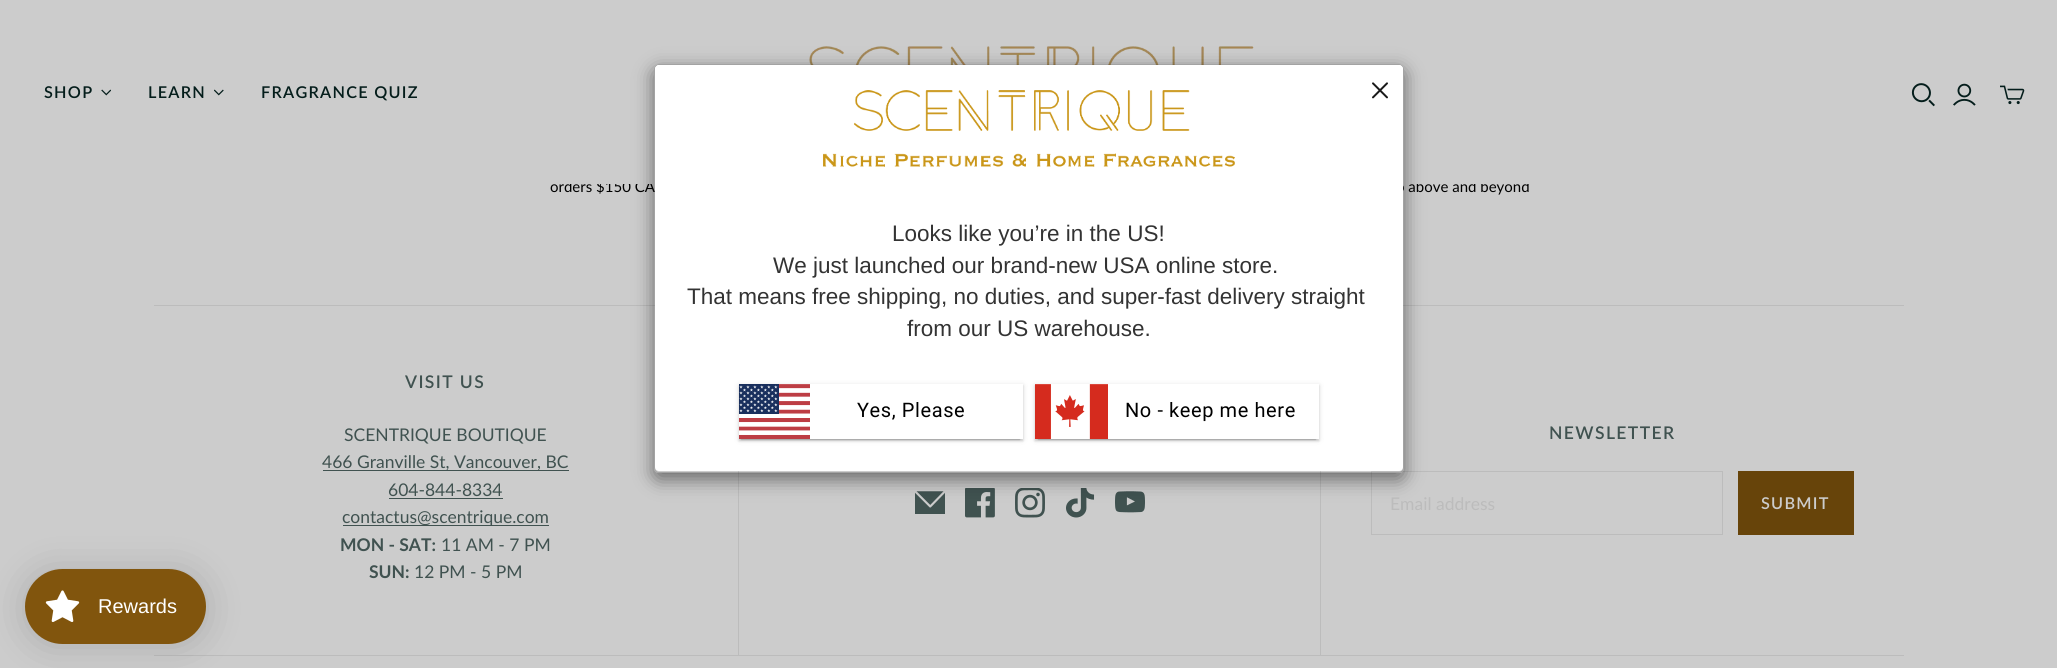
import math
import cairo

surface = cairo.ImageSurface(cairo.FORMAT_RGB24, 2057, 668)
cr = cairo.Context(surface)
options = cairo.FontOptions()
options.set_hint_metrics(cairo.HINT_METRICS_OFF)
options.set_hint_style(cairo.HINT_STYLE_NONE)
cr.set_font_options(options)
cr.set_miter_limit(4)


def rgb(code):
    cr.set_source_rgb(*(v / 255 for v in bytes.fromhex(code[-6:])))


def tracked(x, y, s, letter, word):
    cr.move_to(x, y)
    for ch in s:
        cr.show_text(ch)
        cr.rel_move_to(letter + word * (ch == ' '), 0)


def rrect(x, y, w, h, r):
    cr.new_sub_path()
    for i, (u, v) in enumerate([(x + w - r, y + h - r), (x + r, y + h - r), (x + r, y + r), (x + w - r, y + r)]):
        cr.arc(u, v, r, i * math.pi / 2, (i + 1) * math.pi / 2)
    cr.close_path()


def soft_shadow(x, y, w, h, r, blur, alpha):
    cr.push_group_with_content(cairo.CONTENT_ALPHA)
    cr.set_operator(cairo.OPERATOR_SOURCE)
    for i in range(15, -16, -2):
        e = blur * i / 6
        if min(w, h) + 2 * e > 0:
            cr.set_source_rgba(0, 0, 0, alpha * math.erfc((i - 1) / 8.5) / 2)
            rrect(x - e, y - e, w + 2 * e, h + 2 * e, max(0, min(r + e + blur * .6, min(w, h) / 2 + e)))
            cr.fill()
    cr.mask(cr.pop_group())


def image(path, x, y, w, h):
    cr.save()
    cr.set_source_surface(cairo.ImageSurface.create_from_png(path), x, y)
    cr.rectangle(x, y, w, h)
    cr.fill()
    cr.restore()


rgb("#cccccc")
cr.paint()
image("img/1.png", 809, 46, 445, 19)
image("img/2.png", 101, 89, 10, 7)
image("img/3.png", 214, 89, 10, 7)
image("img/4.png", 1911, 83, 24, 24)
image("img/5.png", 1953, 83, 23, 23)
image("img/6.png", 2000, 85, 25, 20)
for x, y, w, h, color in [
    (154, 305, 1750, 1, "#bcbcbc"),
    (154, 655, 1750, 1, "#bcbcbc"),
    (323, 470, 246, 1, "#405250"),
    (389, 498, 114, 1, "#405250"),
    (343, 525, 206, 1, "#405250"),
    (738, 471, 1, 184, "#bcbcbc"),
]:
    rgb(color)
    cr.rectangle(x, y, w, h)
    cr.fill()
image("img/11.png", 915, 491, 30, 23)
image("img/12.png", 965, 488, 30, 30)
image("img/13.png", 1015, 488, 30, 30)
image("img/14.png", 1066, 488, 29, 30)
image("img/15.png", 1115, 491, 30, 22)
cr.rectangle(1320, 471, 1, 184)
cr.fill()
cr.rectangle(1371.5, 471.5, 351, 63)
cr.set_line_width(1)
cr.stroke()
rgb("#67440a")
cr.rectangle(1738, 471, 116, 64)
cr.fill()
rgb("#000000")
soft_shadow(25, 571, 181, 75, 37.5, 19, 0.15)
rgb("#81550d")
rrect(25, 569, 181, 75, 37.5)
cr.fill()
image("img/16.png", 45, 590, 35, 32)
cr.select_font_face("Lato SemiBold")
cr.set_font_size(16.25)
rgb("#041d1b")
for x, y, s in [
    (44, 98, "SHOP"),
    (148, 98, "LEARN"),
    (261, 98, "FRAGRANCE QUIZ"),
]:
    tracked(x, y, s, 1.25, 0)
cr.select_font_face("Lato")
cr.set_font_size(15)
rgb("#000000")
cr.move_to(550, 192)
cr.show_text("orders $150 CA")
cr.move_to(1396, 192)
cr.show_text("o above and beyond")
rgb("#cccccc")
cr.rectangle(569, 179, 960, 5)
cr.fill()
cr.save()
cr.set_fill_rule(cairo.FILL_RULE_EVEN_ODD)
cr.new_path()
cr.move_to(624, 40)
cr.line_to(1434, 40)
cr.line_to(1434, 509)
cr.line_to(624, 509)
cr.close_path()
cr.move_to(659, 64)
cr.line_to(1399, 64)
cr.curve_to(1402, 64, 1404, 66, 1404, 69)
cr.line_to(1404, 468)
cr.curve_to(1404, 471, 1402, 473, 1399, 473)
cr.line_to(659, 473)
cr.curve_to(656, 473, 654, 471, 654, 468)
cr.line_to(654, 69)
cr.curve_to(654, 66, 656, 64, 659, 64)
cr.close_path()
cr.clip()
rgb("#000000")
soft_shadow(654, 70, 750, 409, 5, 9.5, 0.5)
cr.restore()
rgb("#ffffff")
rrect(655, 65, 748, 406, 4)
cr.fill()
rrect(654.5, 64.5, 749, 408, 4.5)
cr.set_source_rgba(0, 0, 0, 0.2)
cr.stroke()
rgb("#ffffff")
cr.new_path()
cr.move_to(659, 65)
cr.line_to(1399, 65)
cr.curve_to(1401, 65, 1403, 67, 1403, 69)
cr.line_to(1403, 205)
cr.line_to(655, 205)
cr.line_to(655, 69)
cr.curve_to(655, 67, 657, 65, 659, 65)
cr.close_path()
cr.fill()
image("img/7.png", 823, 90, 412, 77)
image("img/8.png", 1372, 82, 16, 17)
cr.select_font_face("Liberation Sans")
cr.set_font_size(22.5)
rgb("#333333")
for x, y, s in [
    (892, 241, "Looks like you’re in the US!"),
    (773, 273, "We just launched our brand-new USA online store."),
    (687, 304, "That means free shipping, no duties, and super-fast delivery straight"),
    (907, 336, "from our US warehouse."),
]:
    cr.move_to(x, y)
    cr.show_text(s)
rgb("#000000")
soft_shadow(739, 385, 284, 55, 0, 3, 0.12)
soft_shadow(741, 390, 279, 50, 0, 0.5, 0.2)
soft_shadow(739, 386, 284, 55, 0, 1, 0.14)
rgb("#ffffff")
cr.rectangle(739, 384, 284, 55)
cr.fill()
image("img/9.png", 739, 384, 71, 55)
cr.select_font_face("Roboto")
cr.set_font_size(20)
rgb("#000000")
tracked(857, 417, "Yes, Please", 0.6, 0)
rgb("#000000")
soft_shadow(1035, 385, 284, 55, 0, 3, 0.12)
soft_shadow(1038, 390, 278, 50, 0, 0.5, 0.2)
soft_shadow(1035, 386, 284, 55, 0, 1, 0.14)
rgb("#ffffff")
cr.rectangle(1035, 384, 284, 55)
cr.fill()
image("img/10.png", 1035, 384, 73, 55)
rgb("#000000")
tracked(1125, 417, "No - keep me here", 0.6, 0)
cr.select_font_face("Lato SemiBold")
cr.set_font_size(17.5)
rgb("#405250")
tracked(405, 388, "VISIT US", 1.4, 0)
cr.select_font_face("Lato")
for x, y, s in [
    (344, 441, "SCENTRIQUE BOUTIQUE"),
    (322, 468, "466 Granville St, Vancouver, BC"),
    (388, 496, "604-844-8334"),
    (342, 523, "contactus@scentrique.com"),
]:
    cr.move_to(x, y)
    cr.show_text(s)
cr.select_font_face("Lato", cairo.FONT_SLANT_NORMAL, cairo.FONT_WEIGHT_BOLD)
cr.move_to(340, 551)
cr.show_text("MON - SAT:")
cr.select_font_face("Lato")
cr.move_to(441, 551)
cr.show_text("11 AM - 7 PM")
cr.select_font_face("Lato", cairo.FONT_SLANT_NORMAL, cairo.FONT_WEIGHT_BOLD)
cr.move_to(369, 578)
cr.show_text("SUN:")
cr.select_font_face("Lato")
cr.move_to(414, 578)
cr.show_text("12 PM - 5 PM")
cr.select_font_face("Lato SemiBold")
tracked(1549, 439, "NEWSLETTER", 1.4, 0)
cr.select_font_face("Lato")
rgb("#bcbcbc")
cr.move_to(1390, 510)
cr.show_text("Email address")
cr.select_font_face("Lato SemiBold")
cr.set_font_size(16.25)
rgb("#cccccc")
tracked(1761, 509, "SUBMIT", 1.25, 0)
cr.select_font_face("Liberation Sans")
cr.set_font_size(20)
rgb("#ffffff")
cr.move_to(98, 613)
cr.show_text("Rewards")
surface.write_to_png("page.png")
